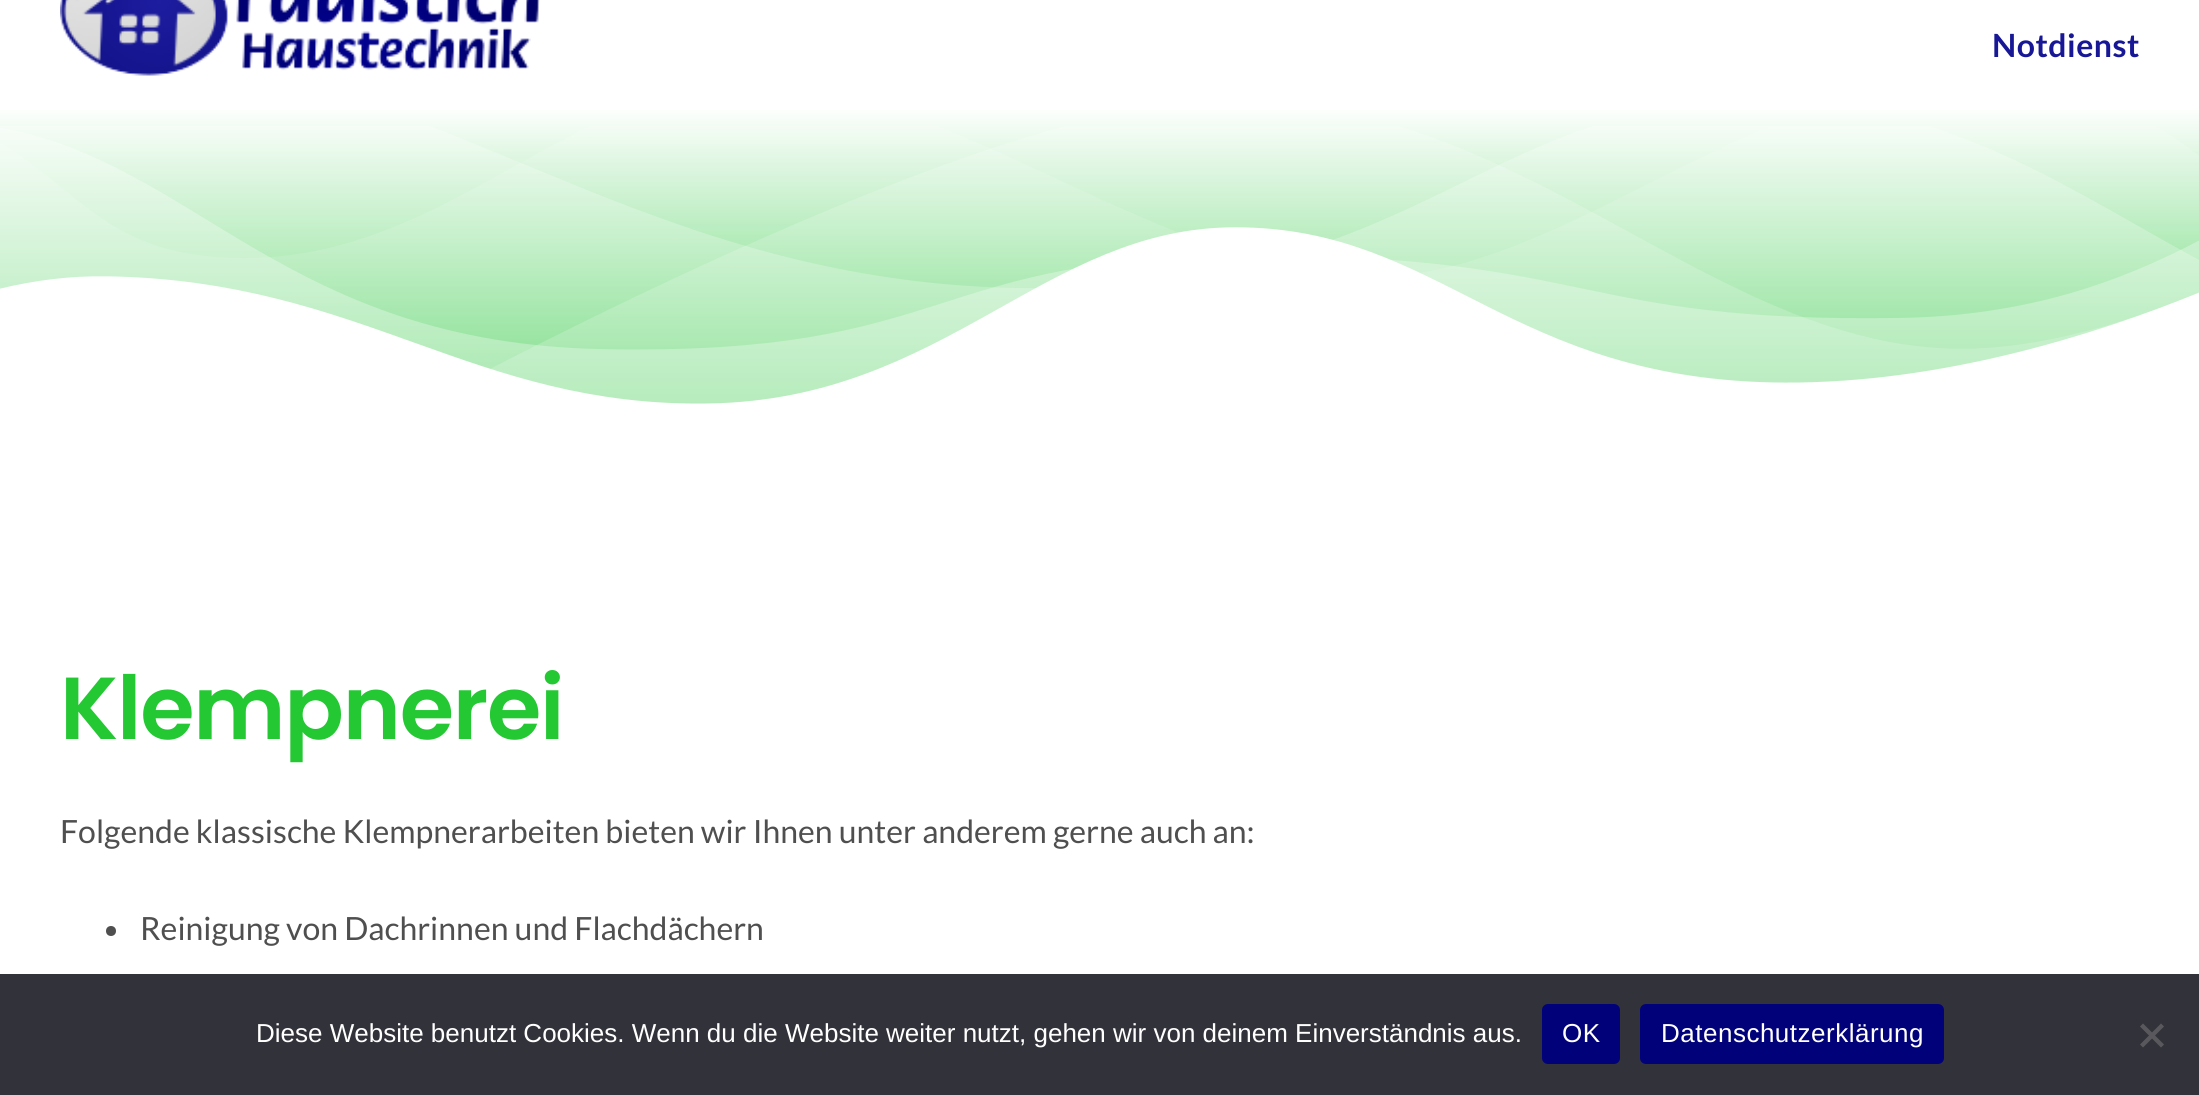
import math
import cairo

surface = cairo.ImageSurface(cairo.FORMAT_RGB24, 2199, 1095)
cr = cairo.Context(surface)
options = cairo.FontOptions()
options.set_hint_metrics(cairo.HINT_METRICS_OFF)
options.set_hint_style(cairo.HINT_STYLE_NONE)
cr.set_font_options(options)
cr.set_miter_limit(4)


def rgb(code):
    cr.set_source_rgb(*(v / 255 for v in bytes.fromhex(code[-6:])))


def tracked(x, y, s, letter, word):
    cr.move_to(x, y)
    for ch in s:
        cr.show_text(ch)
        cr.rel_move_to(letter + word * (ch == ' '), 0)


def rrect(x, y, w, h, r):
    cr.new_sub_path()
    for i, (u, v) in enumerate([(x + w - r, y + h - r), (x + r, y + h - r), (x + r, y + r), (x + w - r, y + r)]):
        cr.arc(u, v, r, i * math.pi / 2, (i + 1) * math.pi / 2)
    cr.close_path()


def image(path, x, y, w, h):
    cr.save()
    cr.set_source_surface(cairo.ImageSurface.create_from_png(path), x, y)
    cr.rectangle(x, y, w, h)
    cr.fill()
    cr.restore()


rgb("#ffffff")
cr.paint()
image("img/1.png", 60, 0, 480, 76)
gradient = cairo.LinearGradient(1100, 456, 1100, 106)
gradient.add_color_stop_rgba(0, 0.125, 0.769, 0.2, 1)
gradient.add_color_stop_rgba(1, 1, 1, 1, 1)
cr.set_source(gradient)
cr.rectangle(0, 110, 2199, 294)
cr.fill()
image("img/2.png", 0, 126, 2199, 330)
rgb("#4f4f4f")
cr.arc(111, 931, 5, 0, 2 * math.pi)
cr.fill()
rgb("#32323a")
cr.rectangle(0, 974, 2199, 121)
cr.fill()
rgb("#01017a")
rrect(1542, 1004, 78, 60, 6)
cr.fill()
rrect(1640, 1004, 304, 60, 6)
cr.fill()
rgb("#59595d")
cr.new_path()
cr.move_to(2161, 1023.5)
cr.line_to(2164, 1026.5)
cr.line_to(2143, 1047.5)
cr.line_to(2140, 1044.5)
cr.close_path()
cr.fill()
cr.new_path()
cr.move_to(2140, 1026.5)
cr.line_to(2143, 1023.5)
cr.line_to(2164, 1044.5)
cr.line_to(2161, 1047.5)
cr.close_path()
cr.fill()
cr.select_font_face("Lato", cairo.FONT_SLANT_NORMAL, cairo.FONT_WEIGHT_BOLD)
cr.set_font_size(32)
rgb("#181897")
tracked(1992, 57, "Notdienst", 0.5, 0)
cr.select_font_face("Poppins SemiBold")
cr.set_font_size(88)
rgb("#23c833")
tracked(60, 739, "Klempnerei", -1.25, 0)
cr.select_font_face("Lato")
cr.set_font_size(32)
rgb("#4f4f4f")
cr.move_to(60, 843)
cr.show_text("Folgende klassische Klempnerarbeiten bieten wir Ihnen unter anderem gerne auch an:")
cr.move_to(140, 940)
cr.show_text("Reinigung von Dachrinnen und Flachdächern")
cr.select_font_face("Liberation Sans")
cr.set_font_size(26)
rgb("#ffffff")
cr.move_to(256, 1042)
cr.show_text("Diese Website benutzt Cookies. Wenn du die Website weiter nutzt, gehen wir von deinem Einverständnis aus.")
tracked(1562, 1042, "OK", 0.5, 0)
tracked(1661, 1042, "Datenschutzerklärung", 0.5, 0)
surface.write_to_png("page.png")
